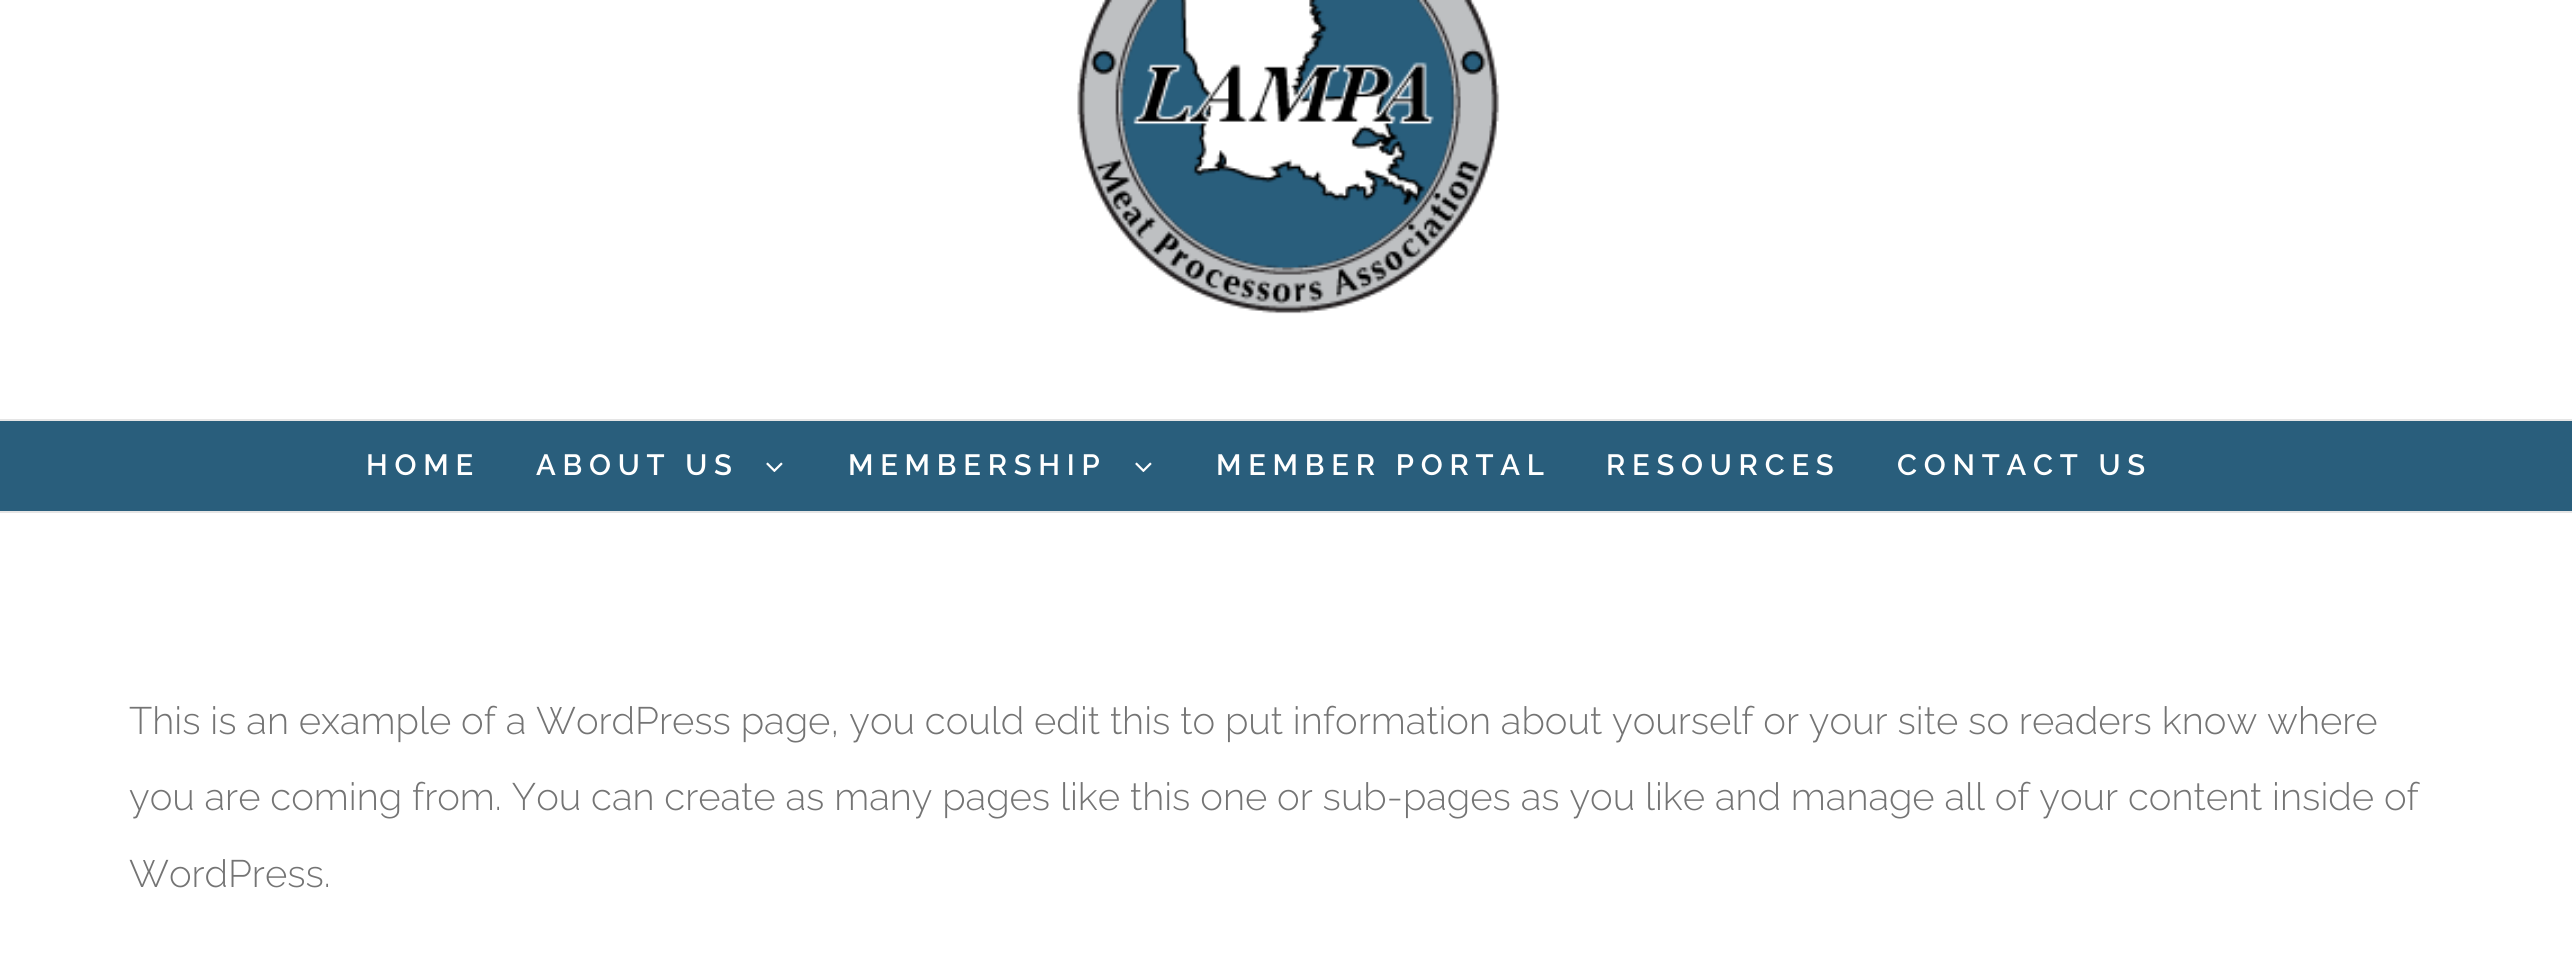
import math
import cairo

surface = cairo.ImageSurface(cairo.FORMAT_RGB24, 2572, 954)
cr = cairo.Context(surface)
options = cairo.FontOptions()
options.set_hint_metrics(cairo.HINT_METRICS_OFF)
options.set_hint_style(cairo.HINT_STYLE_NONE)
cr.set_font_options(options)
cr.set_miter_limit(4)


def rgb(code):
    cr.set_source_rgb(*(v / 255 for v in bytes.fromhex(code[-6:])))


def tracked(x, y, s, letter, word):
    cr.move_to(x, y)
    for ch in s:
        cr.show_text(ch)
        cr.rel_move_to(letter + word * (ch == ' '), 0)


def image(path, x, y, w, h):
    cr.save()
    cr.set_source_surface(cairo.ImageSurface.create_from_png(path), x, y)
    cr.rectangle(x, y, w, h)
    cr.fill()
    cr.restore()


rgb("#ffffff")
cr.paint()
rgb("#e5e5e5")
cr.rectangle(0, 419, 2572, 2)
cr.fill()
image("img/1.png", 1077, 0, 423, 314)
rgb("#295e7c")
cr.rectangle(0, 421, 2572, 90)
cr.fill()
rgb("#e5e5e5")
cr.rectangle(0, 511, 2572, 2)
cr.fill()
image("img/2.png", 766, 462, 17, 10)
image("img/2.png", 1135, 462, 17, 10)
cr.select_font_face("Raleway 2 Thin")
cr.set_font_size(29.25)
rgb("#ffffff")
for x, y, s in [
    (366, 475, "HOME"),
    (536, 475, "ABOUT US"),
    (848, 475, "MEMBERSHIP"),
    (1216, 475, "MEMBER PORTAL"),
    (1606, 475, "RESOURCES"),
    (1897, 475, "CONTACT US"),
]:
    tracked(x, y, s, 6.75, 0)
cr.select_font_face("Raleway Thin")
cr.set_font_size(38.25)
rgb("#747474")
for x, y, s in [
    (129, 734, "This is an example of a WordPress page, you could edit this to put information about yourself or your site so readers know where"),
    (129, 810, "you are coming from. You can create as many pages like this one or sub-pages as you like and manage all of your content inside of"),
    (129, 887, "WordPress."),
]:
    cr.move_to(x, y)
    cr.show_text(s)
surface.write_to_png("page.png")
